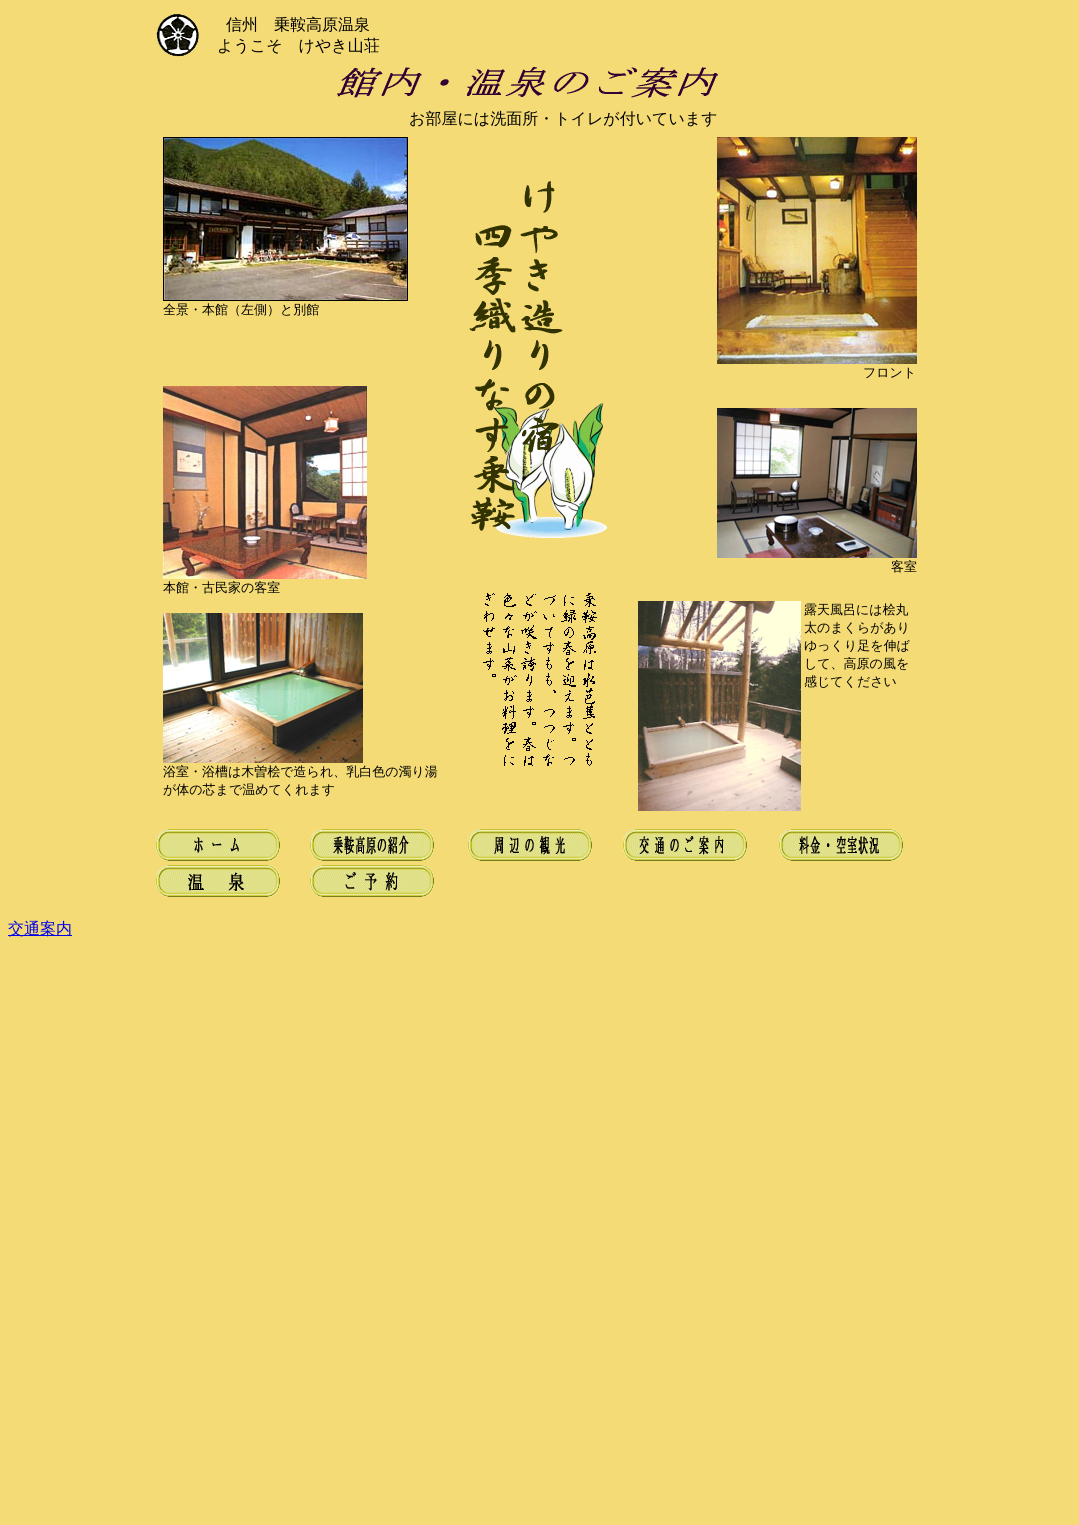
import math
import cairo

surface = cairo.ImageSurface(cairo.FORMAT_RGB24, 1079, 1525)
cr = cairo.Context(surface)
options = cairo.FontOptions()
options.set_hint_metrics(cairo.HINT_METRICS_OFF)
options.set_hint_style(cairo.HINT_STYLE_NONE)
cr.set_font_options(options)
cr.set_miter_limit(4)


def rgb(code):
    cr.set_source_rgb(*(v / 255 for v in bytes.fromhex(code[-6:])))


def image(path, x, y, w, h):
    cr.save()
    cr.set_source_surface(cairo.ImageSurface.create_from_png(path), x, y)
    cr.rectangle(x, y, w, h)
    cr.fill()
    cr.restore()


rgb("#f4db75")
cr.paint()
image("img/1.png", 156, 14, 43, 43)
image("img/2.png", 337, 67, 381, 31)
cr.rectangle(163.5, 137.5, 244, 163)
rgb("#000000")
cr.set_line_width(1)
cr.stroke()
image("img/3.png", 164, 138, 243, 162)
image("img/4.png", 469, 181, 138, 357)
image("img/5.png", 483, 593, 114, 173)
image("img/6.png", 717, 137, 200, 227)
image("img/7.png", 717, 408, 200, 150)
image("img/8.png", 163, 386, 204, 193)
image("img/9.png", 638, 601, 163, 210)
image("img/10.png", 163, 613, 200, 150)
image("img/11.png", 156, 829, 124, 32)
image("img/12.png", 310, 829, 124, 32)
image("img/13.png", 468, 829, 124, 32)
image("img/14.png", 623, 829, 124, 32)
image("img/15.png", 779, 829, 124, 32)
image("img/16.png", 156, 865, 124, 32)
image("img/17.png", 310, 865, 124, 32)
rgb("#0000ee")
cr.rectangle(8, 935, 64, 1)
cr.fill()
cr.select_font_face("WenQuanYi Zen Hei Medium")
cr.set_font_size(16)
rgb("#000000")
for x, y, s in [
    (226, 30, "信州　乗鞍高原温泉"),
    (217, 51, "ようこそ　けやき山荘"),
    (409, 124, "お部屋には洗面所・トイレが付いています"),
]:
    cr.move_to(x, y)
    cr.show_text(s)
cr.set_font_size(13)
for x, y, s in [
    (163, 314, "全景・本館（左側）と別館"),
    (863, 377, "フロント"),
    (891, 571, "客室"),
    (163, 592, "本館・古民家の客室"),
    (804, 614, "露天風呂には桧丸"),
    (804, 632, "太のまくらがあり"),
    (804, 650, "ゆっくり足を伸ば"),
    (804, 668, "して、高原の風を"),
    (804, 686, "感じてください"),
    (163, 776, "浴室・浴槽は木曽桧で造られ、乳白色の濁り湯"),
    (163, 794, "が体の芯まで温めてくれます"),
]:
    cr.move_to(x, y)
    cr.show_text(s)
cr.set_font_size(16)
rgb("#0000ee")
cr.move_to(8, 934)
cr.show_text("交通案内")
surface.write_to_png("page.png")
